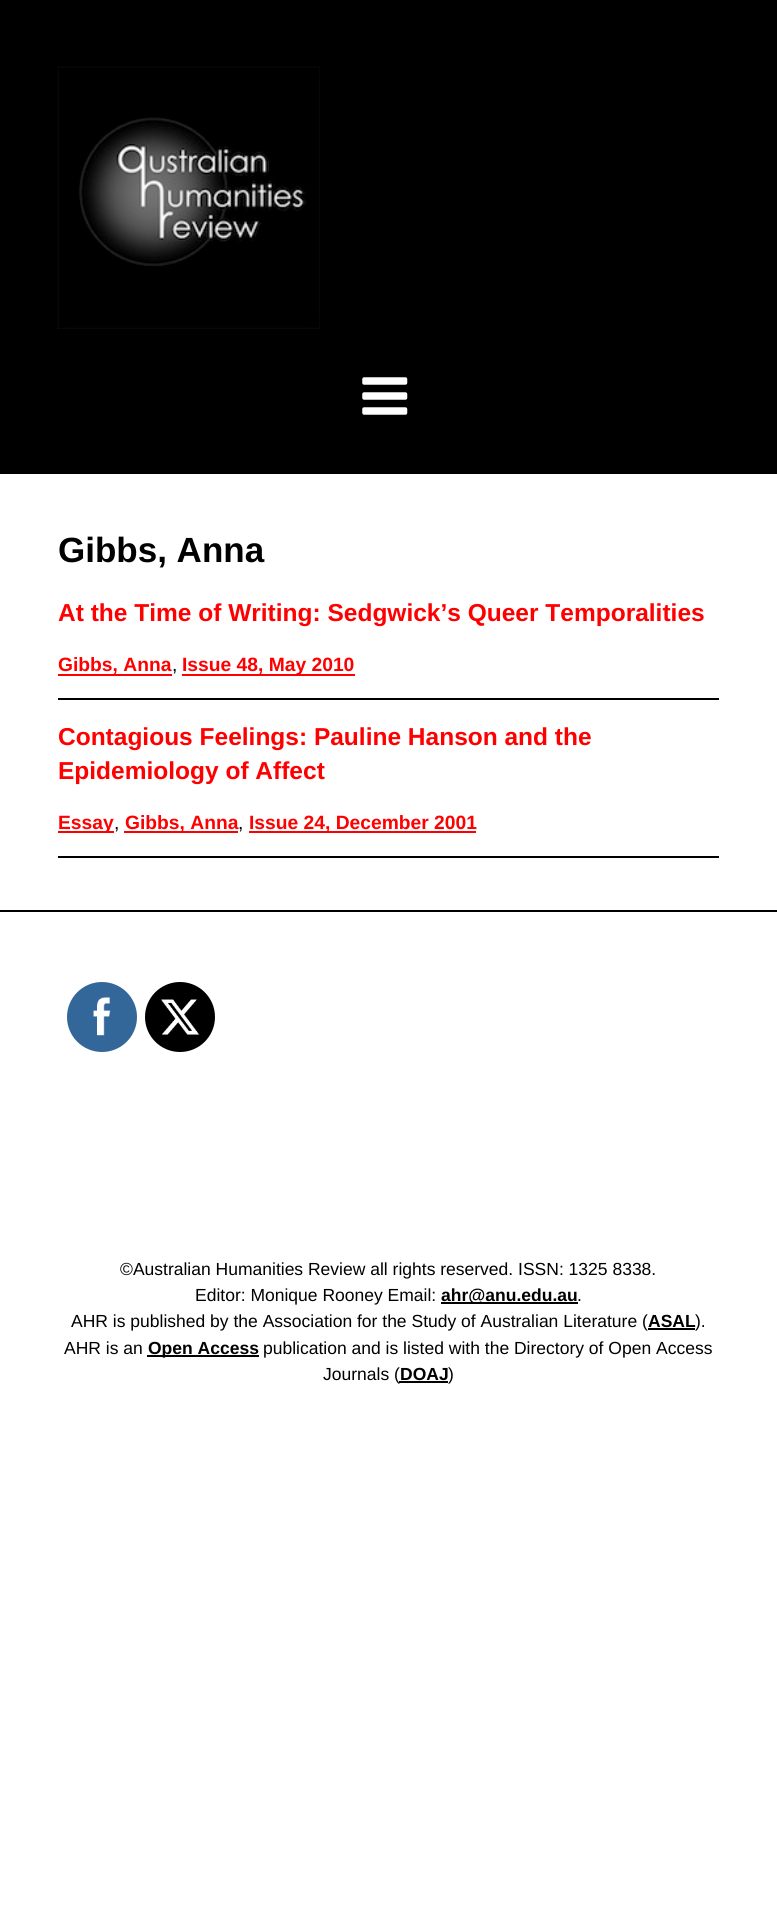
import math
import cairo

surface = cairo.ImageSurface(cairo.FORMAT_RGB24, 777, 1910)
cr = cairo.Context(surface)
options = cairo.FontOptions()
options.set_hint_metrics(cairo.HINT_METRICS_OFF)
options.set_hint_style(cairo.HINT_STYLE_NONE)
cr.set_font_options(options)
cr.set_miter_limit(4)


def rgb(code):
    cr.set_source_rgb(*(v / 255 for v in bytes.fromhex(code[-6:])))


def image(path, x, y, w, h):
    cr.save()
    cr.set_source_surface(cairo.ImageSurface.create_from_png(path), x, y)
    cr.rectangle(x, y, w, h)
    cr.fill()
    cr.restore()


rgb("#ffffff")
cr.paint()
rgb("#000000")
cr.rectangle(0, 0, 777, 474)
cr.fill()
image("img/1.png", 57, 66, 263, 263)
image("img/2.png", 362, 377, 46, 38)
for x, y, w, h, color in [
    (58, 698, 661, 2, "#000000"),
    (58, 674, 114, 2, "#ff0000"),
    (182, 674, 173, 2, "#ff0000"),
    (58, 856, 661, 2, "#000000"),
    (58, 831, 56, 2, "#ff0000"),
    (124, 831, 114, 2, "#ff0000"),
    (249, 831, 227, 2, "#ff0000"),
    (0, 910, 777, 2, "#000000"),
]:
    rgb(color)
    cr.rectangle(x, y, w, h)
    cr.fill()
rgb("#336699")
cr.arc(102, 1017, 35, 0, 2 * math.pi)
cr.fill()
image("img/3.png", 93, 997, 18, 39)
rgb("#000000")
cr.arc(180, 1017, 35, 0, 2 * math.pi)
cr.fill()
image("img/4.png", 161, 999, 39, 36)
for x, y, w, h, color in [
    (441, 1302, 137, 2, "#000000"),
    (648, 1328, 47, 2, "#000000"),
    (147, 1355, 112, 2, "#000000"),
    (399, 1381, 49, 2, "#000000"),
]:
    rgb(color)
    cr.rectangle(x, y, w, h)
    cr.fill()
cr.select_font_face("Liberation Sans", cairo.FONT_SLANT_NORMAL, cairo.FONT_WEIGHT_BOLD)
cr.set_font_size(35)
cr.move_to(58, 562)
cr.show_text("Gibbs, Anna")
cr.set_font_size(24.5)
rgb("#ff0000")
cr.move_to(58, 621)
cr.show_text("At the Time of Writing: Sedgwick’s Queer Temporalities")
cr.set_font_size(19.25)
cr.move_to(58, 671)
cr.show_text("Gibbs, Anna")
cr.select_font_face("Liberation Sans")
rgb("#000000")
cr.move_to(172, 671)
cr.show_text(",")
cr.select_font_face("Liberation Sans", cairo.FONT_SLANT_NORMAL, cairo.FONT_WEIGHT_BOLD)
rgb("#ff0000")
cr.move_to(182, 671)
cr.show_text("Issue 48, May 2010")
cr.set_font_size(24.5)
cr.move_to(58, 745)
cr.show_text("Contagious Feelings: Pauline Hanson and the")
cr.move_to(58, 779)
cr.show_text("Epidemiology of Affect")
cr.set_font_size(19.25)
cr.move_to(58, 829)
cr.show_text("Essay")
cr.select_font_face("Liberation Sans")
rgb("#000000")
cr.move_to(114, 829)
cr.show_text(",")
cr.select_font_face("Liberation Sans", cairo.FONT_SLANT_NORMAL, cairo.FONT_WEIGHT_BOLD)
rgb("#ff0000")
cr.move_to(125, 829)
cr.show_text("Gibbs, Anna")
cr.select_font_face("Liberation Sans")
rgb("#000000")
cr.move_to(238, 829)
cr.show_text(",")
cr.select_font_face("Liberation Sans", cairo.FONT_SLANT_NORMAL, cairo.FONT_WEIGHT_BOLD)
rgb("#ff0000")
cr.move_to(249, 829)
cr.show_text("Issue 24, December 2001")
cr.select_font_face("Liberation Sans")
cr.set_font_size(17.5)
rgb("#000000")
cr.move_to(120, 1275)
cr.show_text("©Australian Humanities Review all rights reserved. ISSN: 1325 8338.")
cr.move_to(195, 1301)
cr.show_text("Editor: Monique Rooney Email:")
cr.select_font_face("Liberation Sans", cairo.FONT_SLANT_NORMAL, cairo.FONT_WEIGHT_BOLD)
cr.move_to(441, 1301)
cr.show_text("ahr@anu.edu.au")
cr.select_font_face("Liberation Sans")
cr.move_to(577, 1301)
cr.show_text(".")
cr.move_to(71, 1327)
cr.show_text("AHR is published by the Association for the Study of Australian Literature (")
cr.select_font_face("Liberation Sans", cairo.FONT_SLANT_NORMAL, cairo.FONT_WEIGHT_BOLD)
cr.move_to(648, 1327)
cr.show_text("ASAL")
cr.select_font_face("Liberation Sans")
cr.move_to(695, 1327)
cr.show_text(").")
cr.move_to(64, 1354)
cr.show_text("AHR is an")
cr.select_font_face("Liberation Sans", cairo.FONT_SLANT_NORMAL, cairo.FONT_WEIGHT_BOLD)
cr.move_to(148, 1354)
cr.show_text("Open Access")
cr.select_font_face("Liberation Sans")
cr.move_to(263, 1354)
cr.show_text("publication and is listed with the Directory of Open Access")
cr.move_to(323, 1380)
cr.show_text("Journals (")
cr.select_font_face("Liberation Sans", cairo.FONT_SLANT_NORMAL, cairo.FONT_WEIGHT_BOLD)
cr.move_to(400, 1380)
cr.show_text("DOAJ")
cr.select_font_face("Liberation Sans")
cr.move_to(448, 1380)
cr.show_text(")")
surface.write_to_png("page.png")
